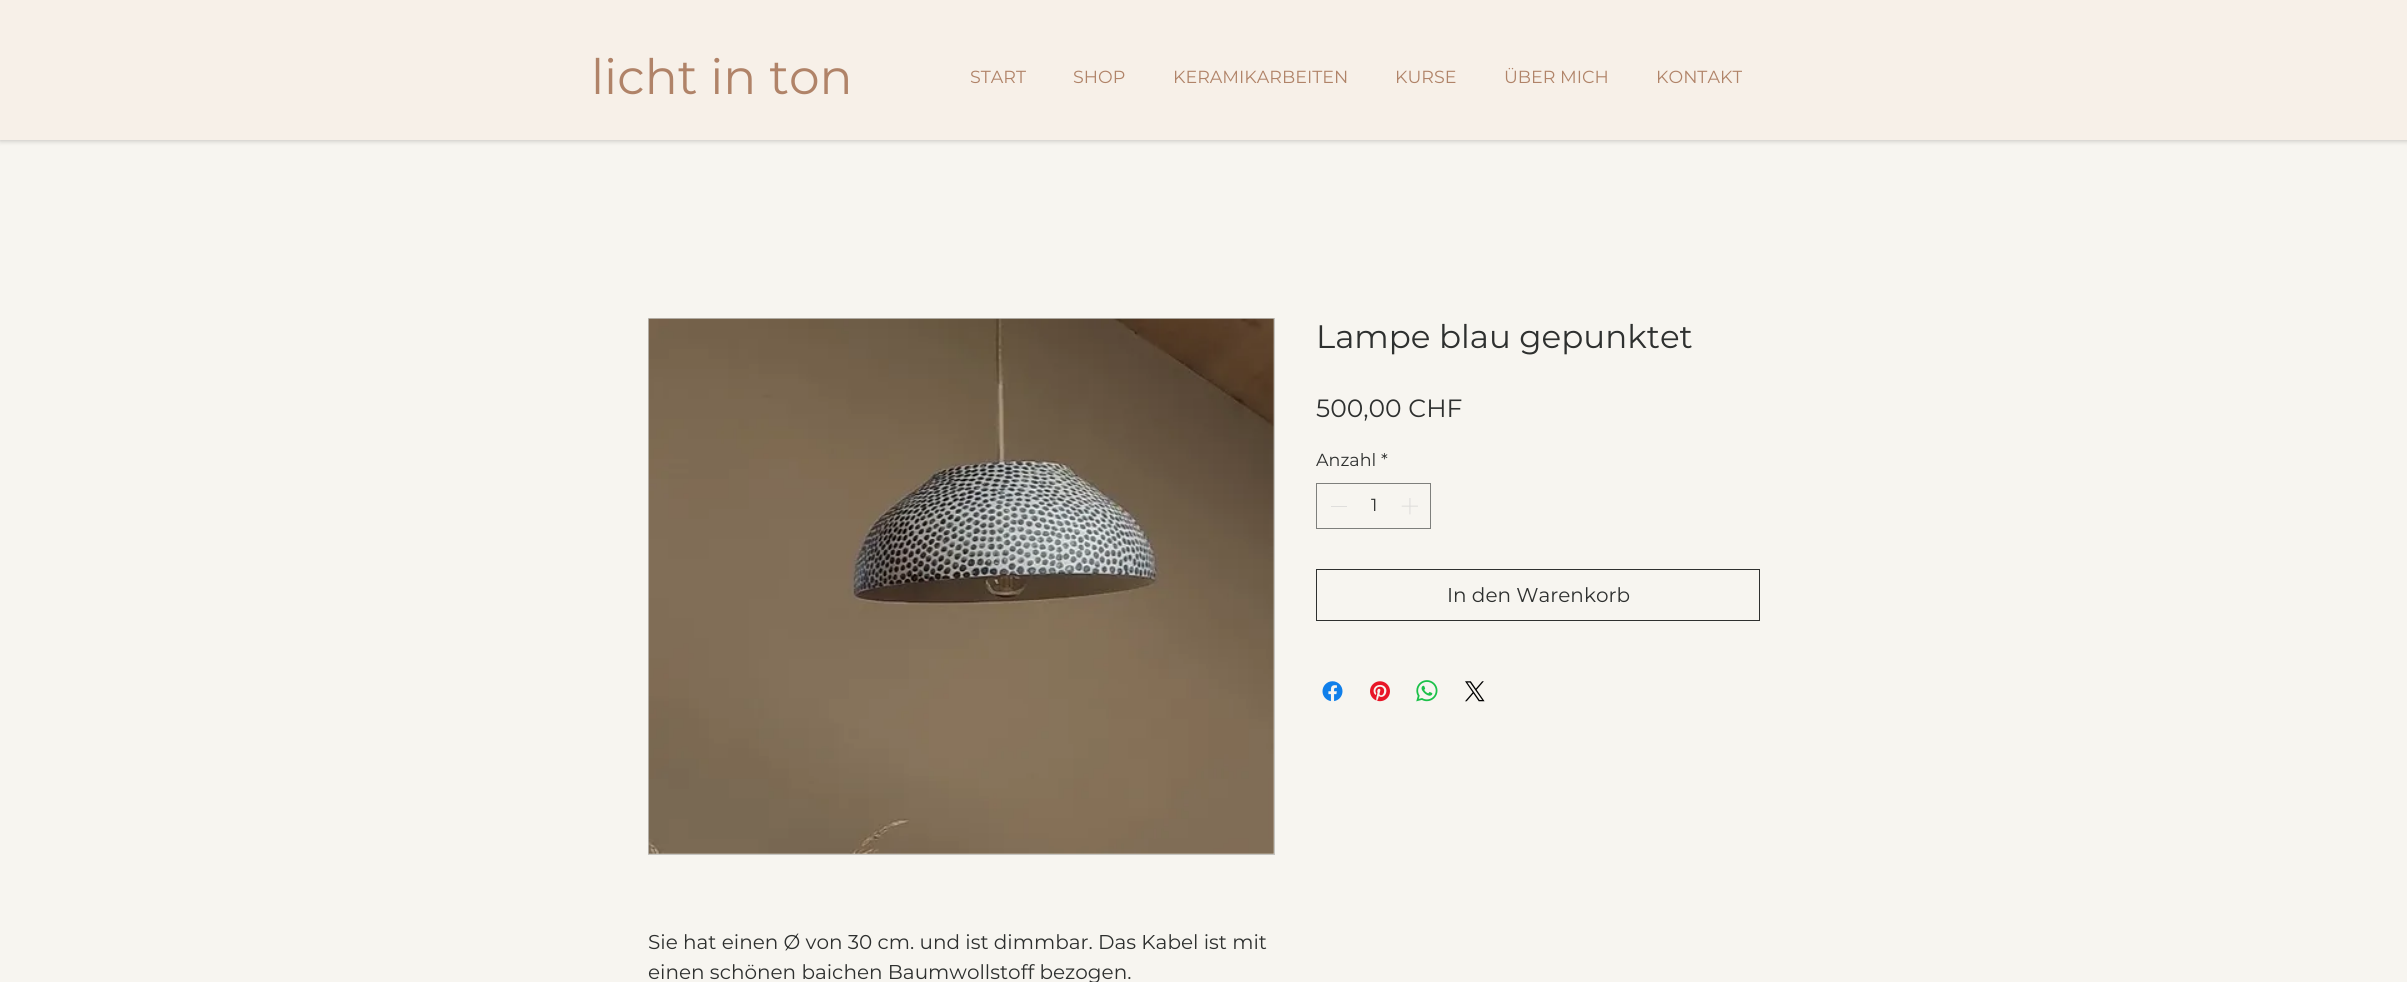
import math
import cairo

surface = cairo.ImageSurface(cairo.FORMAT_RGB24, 2407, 982)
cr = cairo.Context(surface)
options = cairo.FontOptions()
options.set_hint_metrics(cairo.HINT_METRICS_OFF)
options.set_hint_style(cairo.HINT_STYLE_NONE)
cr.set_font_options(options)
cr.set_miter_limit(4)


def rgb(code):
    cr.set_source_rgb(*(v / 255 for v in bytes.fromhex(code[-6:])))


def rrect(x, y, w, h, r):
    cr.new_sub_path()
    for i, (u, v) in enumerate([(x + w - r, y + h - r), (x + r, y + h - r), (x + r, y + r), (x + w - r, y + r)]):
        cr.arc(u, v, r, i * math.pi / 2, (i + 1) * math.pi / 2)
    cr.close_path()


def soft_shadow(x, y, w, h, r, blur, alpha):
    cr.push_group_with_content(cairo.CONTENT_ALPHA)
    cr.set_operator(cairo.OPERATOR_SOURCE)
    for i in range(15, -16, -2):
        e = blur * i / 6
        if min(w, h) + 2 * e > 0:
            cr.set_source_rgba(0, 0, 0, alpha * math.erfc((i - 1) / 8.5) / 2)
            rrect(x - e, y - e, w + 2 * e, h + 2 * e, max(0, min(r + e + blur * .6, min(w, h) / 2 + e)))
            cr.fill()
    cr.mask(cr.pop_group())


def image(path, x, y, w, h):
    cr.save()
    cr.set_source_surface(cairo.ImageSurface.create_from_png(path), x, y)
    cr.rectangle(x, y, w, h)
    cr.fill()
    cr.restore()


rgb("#f7f5f0")
cr.paint()
rgb("#000000")
soft_shadow(0, 1, 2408, 140, 0, 2.5, 0.2)
rgb("#f7f0e8")
cr.rectangle(0, 0, 2407, 140)
cr.fill()
cr.rectangle(1316.5, 483.5, 114, 45)
rgb("#7e7f7c")
cr.set_line_width(1)
cr.stroke()
rgb("#dfdedc")
cr.rectangle(1331, 506, 16, 1)
cr.fill()
image("img/1.png", 1401, 498, 17, 17)
cr.rectangle(1316.5, 569.5, 443, 51)
rgb("#2e302f")
cr.stroke()
image("img/2.png", 1322, 681, 21, 21)
image("img/3.png", 1370, 681, 20, 21)
image("img/4.png", 1416, 680, 22, 22)
image("img/5.png", 1465, 681, 20, 21)
cr.rectangle(648.5, 318.5, 626, 536)
rgb("#c5c4c0")
cr.stroke()
image("img/6.png", 648, 318, 626, 536)
cr.select_font_face("Montserrat")
cr.set_font_size(48.75)
rgb("#b08368")
cr.move_to(591, 94)
cr.show_text("licht in ton")
cr.set_font_size(17.5)
for x, y, s in [
    (970, 83, "START"),
    (1073, 83, "SHOP"),
    (1173, 83, "KERAMIKARBEITEN"),
    (1395, 83, "KURSE"),
    (1504, 83, "ÜBER MICH"),
    (1656, 83, "KONTAKT"),
]:
    cr.move_to(x, y)
    cr.show_text(s)
cr.set_font_size(32.5)
rgb("#2e302f")
cr.move_to(1316, 348)
cr.show_text("Lampe blau gepunktet")
cr.set_font_size(25)
cr.move_to(1316, 417)
cr.show_text("500,00 CHF")
cr.set_font_size(17.5)
for x, y, s in [
    (1316, 466, "Anzahl"),
    (1381, 466, "*"),
    (1371, 511, "1"),
]:
    cr.move_to(x, y)
    cr.show_text(s)
cr.set_font_size(20)
for x, y, s in [
    (1447, 602, "In den Warenkorb"),
    (648, 949, "Sie hat einen Ø von 30 cm. und ist dimmbar. Das Kabel ist mit"),
    (648, 979, "einen schönen baichen Baumwollstoff bezogen."),
]:
    cr.move_to(x, y)
    cr.show_text(s)
surface.write_to_png("page.png")
